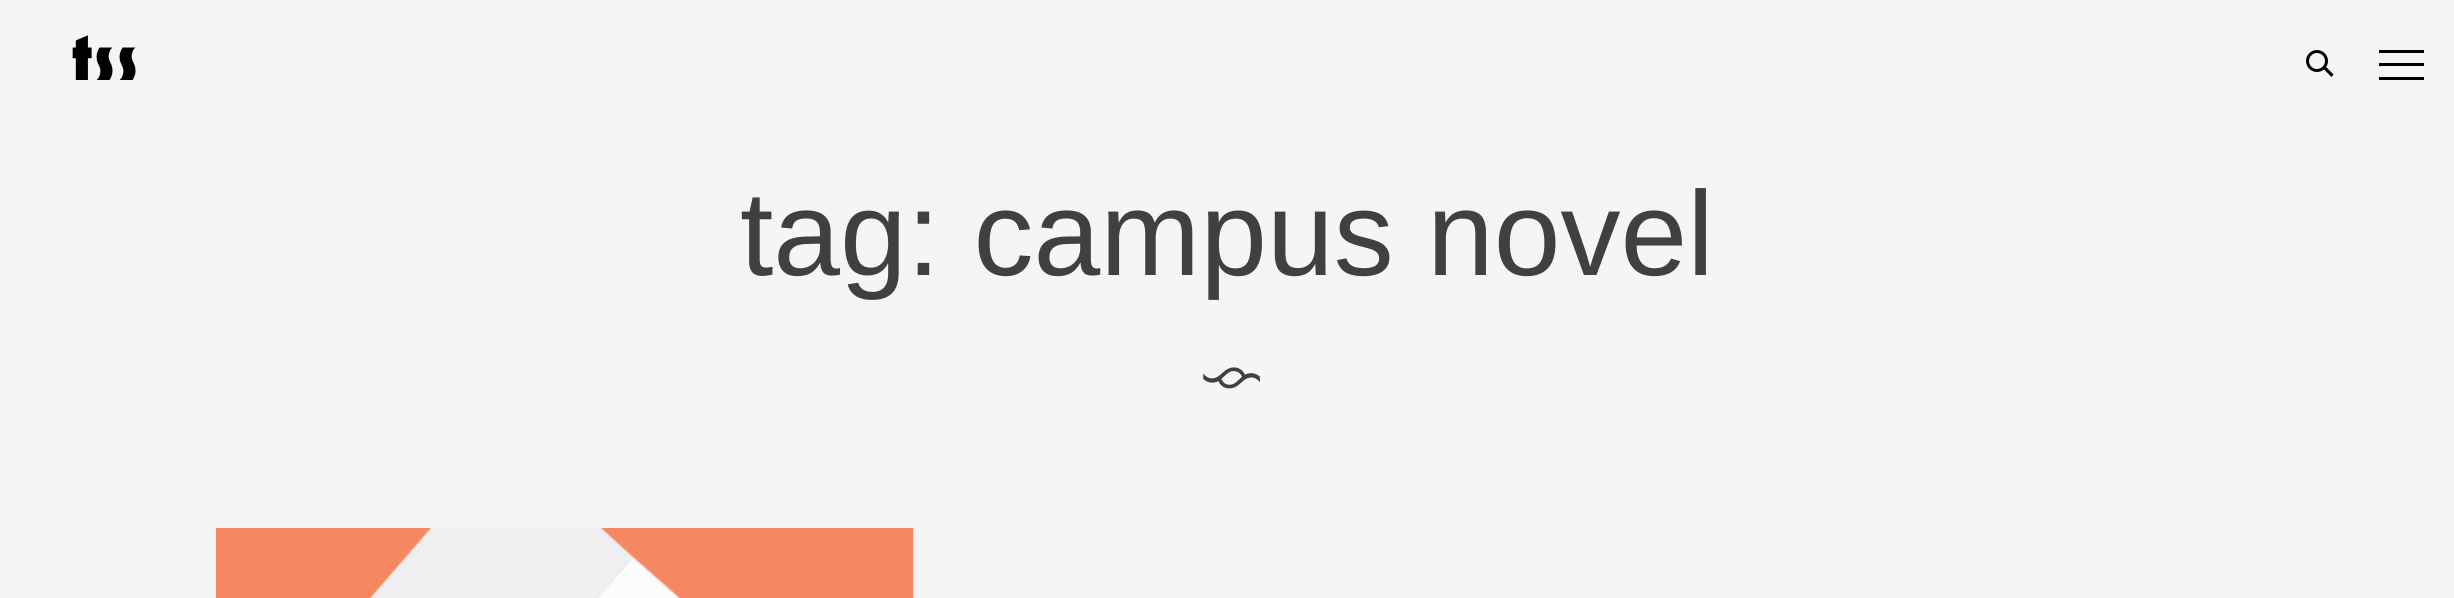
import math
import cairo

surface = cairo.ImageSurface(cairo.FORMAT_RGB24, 2454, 598)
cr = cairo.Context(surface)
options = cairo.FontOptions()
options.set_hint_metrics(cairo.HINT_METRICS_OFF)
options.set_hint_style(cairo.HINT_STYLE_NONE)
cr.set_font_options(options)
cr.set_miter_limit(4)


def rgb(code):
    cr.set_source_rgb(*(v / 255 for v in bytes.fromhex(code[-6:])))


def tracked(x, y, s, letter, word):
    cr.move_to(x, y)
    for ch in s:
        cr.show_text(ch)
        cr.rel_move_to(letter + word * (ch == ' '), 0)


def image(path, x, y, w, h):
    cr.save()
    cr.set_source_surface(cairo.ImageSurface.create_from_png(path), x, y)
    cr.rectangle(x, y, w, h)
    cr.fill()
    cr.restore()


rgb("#f5f5f5")
cr.paint()
rgb("#ffffff")
cr.rectangle(913, 528, 1, 70)
cr.fill()
image("img/1.png", 216, 528, 698, 70)
cr.arc(2317, 61, 9.5, 0, 2 * math.pi)
rgb("#000000")
cr.set_line_width(3)
cr.stroke()
cr.new_path()
cr.move_to(2326, 67)
cr.line_to(2333.5, 74.5)
cr.line_to(2331.5, 77)
cr.line_to(2324, 69.5)
cr.close_path()
cr.fill()
for x, y, w, h, color in [
    (2379, 50, 45, 3, "#000000"),
    (2379, 63, 45, 3, "#000000"),
    (2379, 77, 45, 3, "#000000"),
]:
    rgb(color)
    cr.rectangle(x, y, w, h)
    cr.fill()
cr.select_font_face("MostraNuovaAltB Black")
cr.set_font_size(66)
tracked(72, 80, "t s s", -7.5, 0)
cr.select_font_face("Liberation Sans")
cr.set_font_size(120)
rgb("#404040")
cr.move_to(740, 275)
cr.show_text("tag: campus novel")
cr.select_font_face("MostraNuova")
cr.set_font_size(72)
cr.save()
cr.translate(1207, 364)
cr.rotate(90 * math.pi / 180)
cr.move_to(0, 0)
cr.show_text("§")
cr.restore()
surface.write_to_png("page.png")
